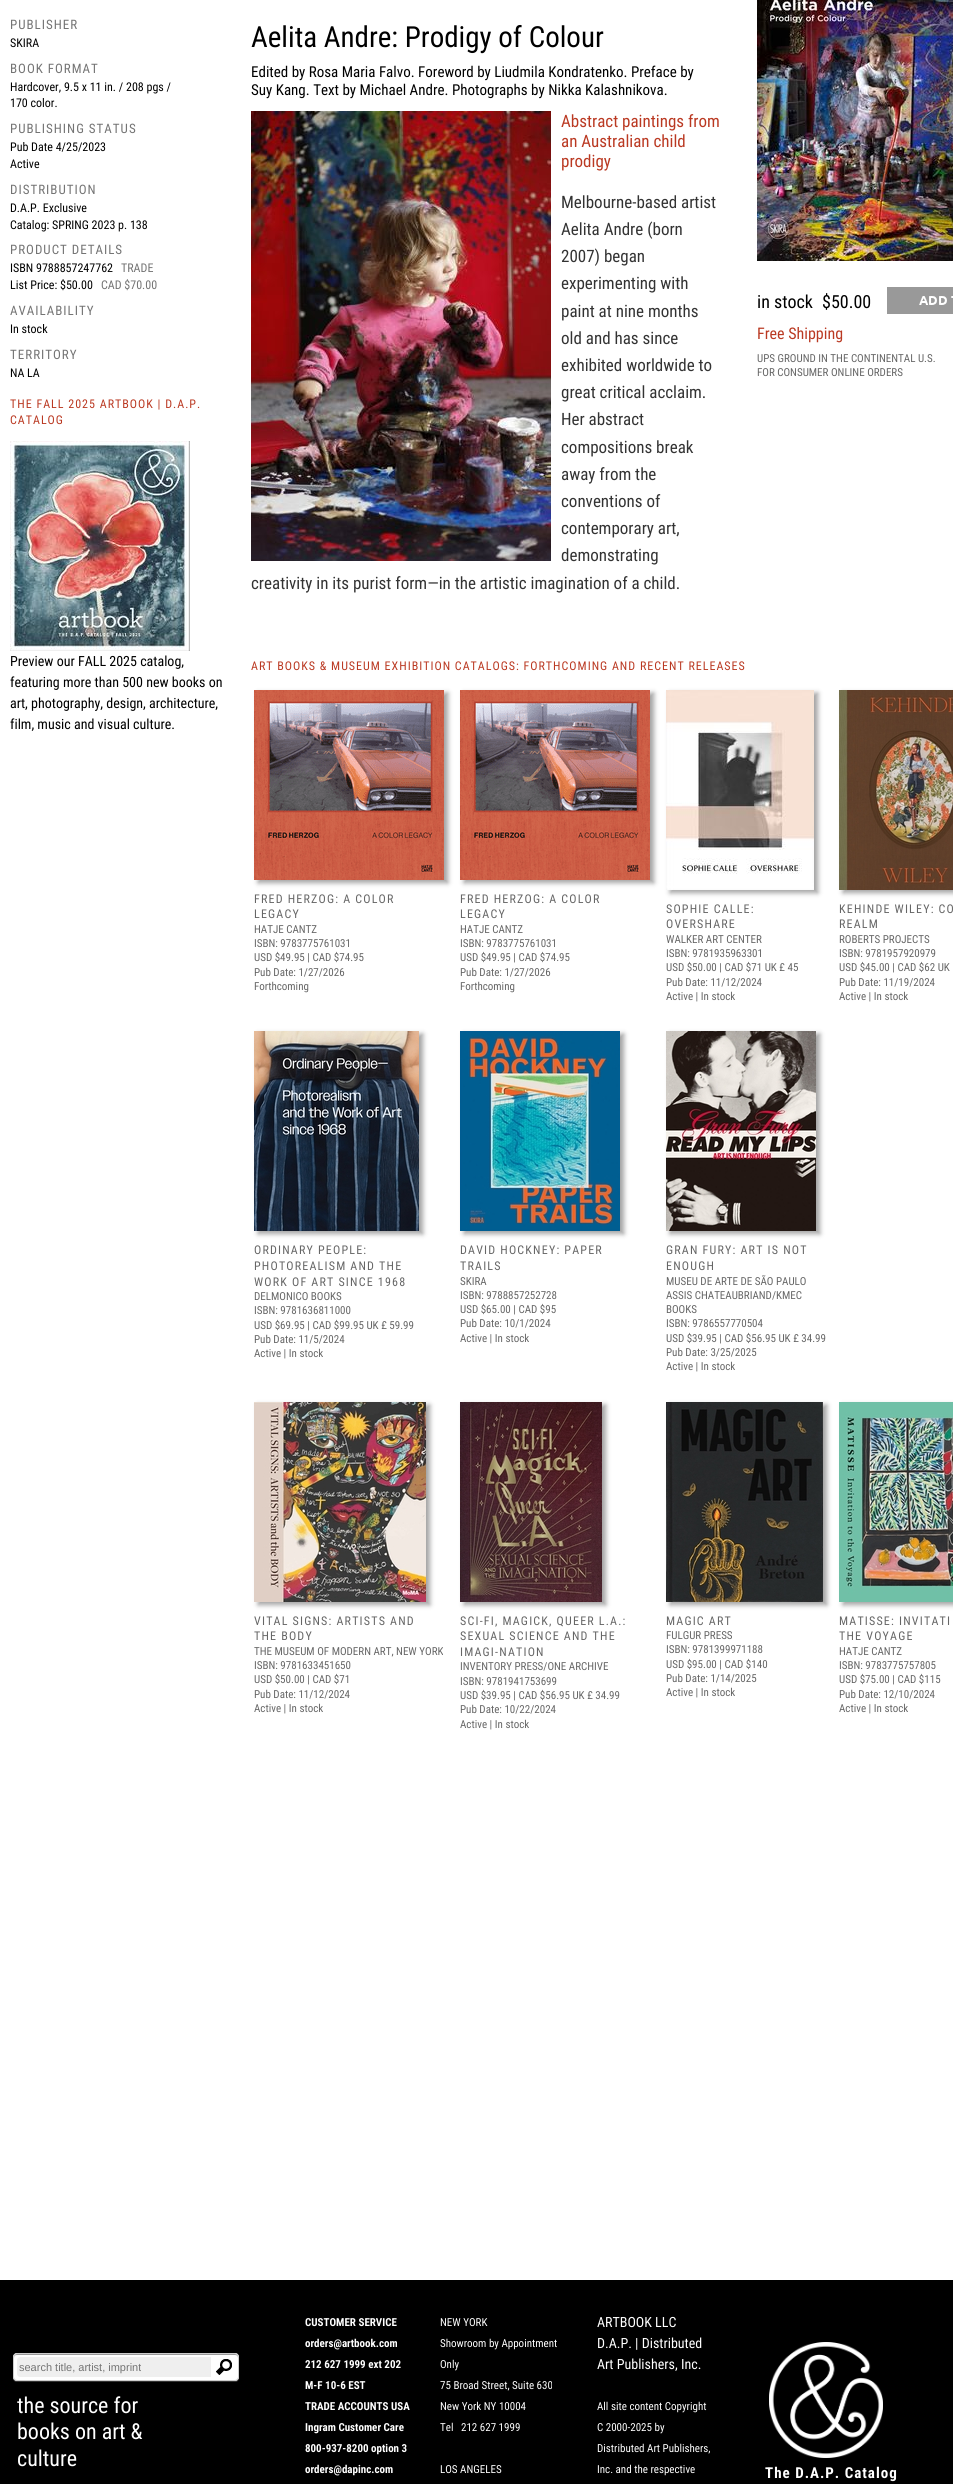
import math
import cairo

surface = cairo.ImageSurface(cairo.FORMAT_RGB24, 953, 2484)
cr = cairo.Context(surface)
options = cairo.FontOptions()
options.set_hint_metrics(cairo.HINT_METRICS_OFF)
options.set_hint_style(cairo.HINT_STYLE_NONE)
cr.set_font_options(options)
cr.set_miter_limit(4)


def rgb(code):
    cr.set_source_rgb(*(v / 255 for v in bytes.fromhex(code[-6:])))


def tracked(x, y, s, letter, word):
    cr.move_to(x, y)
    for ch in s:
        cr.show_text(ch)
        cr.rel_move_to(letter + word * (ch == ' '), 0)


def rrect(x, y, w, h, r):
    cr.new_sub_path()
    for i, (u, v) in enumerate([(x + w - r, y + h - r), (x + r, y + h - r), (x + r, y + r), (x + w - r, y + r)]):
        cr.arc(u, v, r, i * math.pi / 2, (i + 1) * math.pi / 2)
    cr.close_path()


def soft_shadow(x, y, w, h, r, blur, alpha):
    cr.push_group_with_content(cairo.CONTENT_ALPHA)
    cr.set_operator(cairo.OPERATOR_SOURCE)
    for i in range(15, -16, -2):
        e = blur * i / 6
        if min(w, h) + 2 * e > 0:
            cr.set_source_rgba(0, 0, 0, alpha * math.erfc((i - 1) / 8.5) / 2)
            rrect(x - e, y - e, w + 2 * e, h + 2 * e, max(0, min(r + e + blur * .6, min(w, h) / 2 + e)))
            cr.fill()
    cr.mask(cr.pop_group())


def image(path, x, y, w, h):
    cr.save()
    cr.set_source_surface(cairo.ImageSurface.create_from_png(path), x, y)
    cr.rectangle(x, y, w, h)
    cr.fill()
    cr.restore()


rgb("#ffffff")
cr.paint()
image("img/1.png", 10, 441, 180, 210)
image("img/2.png", 251, 111, 300, 450)
image("img/3.png", 757, 0, 196, 261)
image("img/4.png", 887, 287, 66, 27)
rgb("#a3a3a3")
soft_shadow(258, 693, 190, 190, 0, 2.5, 1)
image("img/5.png", 254, 690, 190, 190)
soft_shadow(464, 693, 190, 190, 0, 2.5, 1)
image("img/5.png", 460, 690, 190, 190)
soft_shadow(670, 693, 148, 200, 0, 2.5, 1)
image("img/6.png", 666, 690, 148, 200)
soft_shadow(843, 693, 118, 200, 0, 2.5, 1)
image("img/7.png", 839, 690, 114, 200)
soft_shadow(258, 1034, 165, 200, 0, 2.5, 1)
image("img/8.png", 254, 1031, 165, 200)
soft_shadow(464, 1034, 160, 200, 0, 2.5, 1)
image("img/9.png", 460, 1031, 160, 200)
soft_shadow(670, 1034, 150, 200, 0, 2.5, 1)
image("img/10.png", 666, 1031, 150, 200)
soft_shadow(258, 1405, 172, 200, 0, 2.5, 1)
image("img/11.png", 254, 1402, 172, 200)
soft_shadow(464, 1405, 142, 200, 0, 2.5, 1)
image("img/12.png", 460, 1402, 142, 200)
soft_shadow(670, 1405, 157, 200, 0, 2.5, 1)
image("img/13.png", 666, 1402, 157, 200)
soft_shadow(843, 1405, 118, 200, 0, 2.5, 1)
image("img/14.png", 839, 1402, 114, 200)
rgb("#000000")
cr.rectangle(0, 2280, 953, 204)
cr.fill()
rgb("#333333")
cr.new_path()
cr.move_to(13, 2377)
cr.curve_to(13, 2380, 14, 2382, 17, 2382)
cr.line_to(235, 2382)
cr.curve_to(238, 2382, 239, 2380, 239, 2377)
cr.curve_to(239, 2379, 237, 2381, 235, 2381)
cr.line_to(17, 2381)
cr.curve_to(15, 2381, 13, 2379, 13, 2377)
cr.close_path()
cr.fill()
rgb("#ffffff")
rrect(13, 2353, 226, 28, 4)
cr.fill()
rgb("#999999")
cr.new_path()
cr.move_to(17, 2355)
cr.line_to(235, 2355)
cr.curve_to(237, 2355, 238, 2356, 238, 2358)
cr.line_to(238, 2357)
cr.curve_to(238, 2355, 237, 2354, 235, 2354)
cr.line_to(17, 2354)
cr.curve_to(15, 2354, 14, 2355, 14, 2357)
cr.line_to(14, 2358)
cr.curve_to(14, 2356, 15, 2355, 17, 2355)
cr.close_path()
cr.fill()
rrect(13.5, 2353.5, 225, 27, 3.5)
rgb("#cccccc")
cr.set_line_width(1)
cr.stroke()
rgb("#efefef")
cr.new_path()
cr.move_to(20, 2357)
cr.line_to(211, 2357)
cr.line_to(211, 2377)
cr.line_to(20, 2377)
cr.curve_to(18.5, 2377, 17, 2375.5, 17, 2374)
cr.line_to(17, 2360)
cr.curve_to(17, 2358.5, 18.5, 2357, 20, 2357)
cr.close_path()
cr.fill()
image("img/15.png", 216, 2359, 16, 16)
image("img/16.png", 769, 2342, 114, 116)
cr.select_font_face("Roboto Condensed")
cr.set_font_size(13)
rgb("#747474")
tracked(10, 29, "PUBLISHER", 1, 0)
cr.set_font_size(12)
rgb("#000000")
cr.move_to(10, 47)
cr.show_text("SKIRA")
cr.set_font_size(13)
rgb("#747474")
tracked(10, 73, "BOOK FORMAT", 1, 0)
cr.set_font_size(12)
rgb("#000000")
cr.move_to(10, 91)
cr.show_text("Hardcover, 9.5 x 11 in. / 208 pgs /")
cr.move_to(10, 107)
cr.show_text("170 color.")
cr.set_font_size(13)
rgb("#747474")
tracked(10, 133, "PUBLISHING STATUS", 1, 0)
cr.set_font_size(12)
rgb("#000000")
cr.move_to(10, 151)
cr.show_text("Pub Date 4/25/2023")
cr.move_to(10, 168)
cr.show_text("Active")
cr.set_font_size(13)
rgb("#747474")
tracked(10, 194, "DISTRIBUTION", 1, 0)
cr.set_font_size(12)
rgb("#000000")
cr.move_to(10, 212)
cr.show_text("D.A.P. Exclusive")
cr.move_to(10, 229)
cr.show_text("Catalog: SPRING 2023 p. 138")
cr.set_font_size(13)
rgb("#747474")
tracked(10, 254, "PRODUCT DETAILS", 1, 0)
cr.set_font_size(12)
rgb("#000000")
cr.move_to(10, 272)
cr.show_text("ISBN 9788857247762")
rgb("#747474")
cr.move_to(121, 272)
cr.show_text("TRADE")
rgb("#000000")
cr.move_to(10, 289)
cr.show_text("List Price: $50.00")
rgb("#747474")
cr.move_to(101, 289)
cr.show_text("CAD $70.00")
cr.set_font_size(13)
tracked(10, 315, "AVAILABILITY", 1, 0)
cr.set_font_size(12)
rgb("#000000")
cr.move_to(10, 333)
cr.show_text("In stock")
cr.set_font_size(13)
rgb("#747474")
tracked(10, 359, "TERRITORY", 1, 0)
cr.set_font_size(12)
rgb("#000000")
cr.move_to(10, 377)
cr.show_text("NA LA")
rgb("#ba3922")
tracked(10, 408, "THE FALL 2025 ARTBOOK | D.A.P.", 1, 0)
tracked(10, 424, "CATALOG", 1, 0)
cr.set_font_size(14)
rgb("#000000")
for x, y, s in [
    (10, 666, "Preview our FALL 2025 catalog,"),
    (10, 687, "featuring more than 500 new books on"),
    (10, 708, "art, photography, design, architecture,"),
    (10, 729, "film, music and visual culture."),
]:
    cr.move_to(x, y)
    cr.show_text(s)
cr.set_font_size(29)
cr.move_to(251, 47)
cr.show_text("Aelita Andre: Prodigy of Colour")
cr.set_font_size(15)
cr.move_to(251, 77)
cr.show_text("Edited by Rosa Maria Falvo. Foreword by Liudmila Kondratenko. Preface by")
cr.move_to(251, 95)
cr.show_text("Suy Kang. Text by Michael Andre. Photographs by Nikka Kalashnikova.")
cr.set_font_size(17)
rgb("#ba3922")
for x, y, s in [
    (561, 127, "Abstract paintings from"),
    (561, 147, "an Australian child"),
    (561, 167, "prodigy"),
]:
    cr.move_to(x, y)
    cr.show_text(s)
rgb("#333333")
for x, y, s in [
    (561, 208, "Melbourne-based artist"),
    (561, 235, "Aelita Andre (born"),
    (561, 262, "2007) began"),
    (561, 289, "experimenting with"),
    (561, 317, "paint at nine months"),
    (561, 344, "old and has since"),
    (561, 371, "exhibited worldwide to"),
    (561, 398, "great critical acclaim."),
    (561, 425, "Her abstract"),
    (561, 453, "compositions break"),
    (561, 480, "away from the"),
    (561, 507, "conventions of"),
    (561, 534, "contemporary art,"),
    (561, 561, "demonstrating"),
    (251, 589, "creativity in its purist form—in the artistic imagination of a child."),
]:
    cr.move_to(x, y)
    cr.show_text(s)
cr.set_font_size(18)
rgb("#000000")
cr.move_to(757, 308)
cr.show_text("in stock")
cr.move_to(822, 308)
cr.show_text("$50.00")
cr.set_font_size(16)
rgb("#ba3922")
cr.move_to(757, 339)
cr.show_text("Free Shipping")
cr.set_font_size(11)
rgb("#666666")
cr.move_to(757, 362)
cr.show_text("UPS GROUND IN THE CONTINENTAL U.S.")
cr.move_to(757, 376)
cr.show_text("FOR CONSUMER ONLINE ORDERS")
cr.set_font_size(12)
rgb("#ba3922")
tracked(251, 670, "ART BOOKS & MUSEUM EXHIBITION CATALOGS: FORTHCOMING AND RECENT RELEASES", 1, 0)
rgb("#666666")
tracked(254, 903, "FRED HERZOG: A COLOR", 1.2, 0)
tracked(254, 918, "LEGACY", 1.2, 0)
cr.set_font_size(11)
for x, y, s in [
    (254, 933, "HATJE CANTZ"),
    (254, 947, "ISBN: 9783775761031"),
    (254, 961, "USD $49.95 | CAD $74.95"),
    (254, 976, "Pub Date: 1/27/2026"),
    (254, 990, "Forthcoming"),
]:
    cr.move_to(x, y)
    cr.show_text(s)
cr.set_font_size(12)
tracked(460, 903, "FRED HERZOG: A COLOR", 1.2, 0)
tracked(460, 918, "LEGACY", 1.2, 0)
cr.set_font_size(11)
for x, y, s in [
    (460, 933, "HATJE CANTZ"),
    (460, 947, "ISBN: 9783775761031"),
    (460, 961, "USD $49.95 | CAD $74.95"),
    (460, 976, "Pub Date: 1/27/2026"),
    (460, 990, "Forthcoming"),
]:
    cr.move_to(x, y)
    cr.show_text(s)
cr.set_font_size(12)
tracked(666, 913, "SOPHIE CALLE:", 1.2, 0)
tracked(666, 928, "OVERSHARE", 1.2, 0)
cr.set_font_size(11)
for x, y, s in [
    (666, 943, "WALKER ART CENTER"),
    (666, 957, "ISBN: 9781935963301"),
    (666, 971, "USD $50.00 | CAD $71 UK £ 45"),
    (666, 986, "Pub Date: 11/12/2024"),
    (666, 1000, "Active | In stock"),
]:
    cr.move_to(x, y)
    cr.show_text(s)
cr.set_font_size(12)
tracked(839, 913, "KEHINDE WILEY: CO", 1.2, 0)
tracked(839, 928, "REALM", 1.2, 0)
cr.set_font_size(11)
for x, y, s in [
    (839, 943, "ROBERTS PROJECTS"),
    (839, 957, "ISBN: 9781957920979"),
    (839, 971, "USD $45.00 | CAD $62 UK"),
    (839, 986, "Pub Date: 11/19/2024"),
    (839, 1000, "Active | In stock"),
]:
    cr.move_to(x, y)
    cr.show_text(s)
cr.set_font_size(12)
for x, y, s in [
    (254, 1254, "ORDINARY PEOPLE:"),
    (254, 1270, "PHOTOREALISM AND THE"),
    (254, 1286, "WORK OF ART SINCE 1968"),
]:
    tracked(x, y, s, 1.2, 0)
cr.set_font_size(11)
for x, y, s in [
    (254, 1300, "DELMONICO BOOKS"),
    (254, 1314, "ISBN: 9781636811000"),
    (254, 1329, "USD $69.95 | CAD $99.95 UK £ 59.99"),
    (254, 1343, "Pub Date: 11/5/2024"),
    (254, 1357, "Active | In stock"),
]:
    cr.move_to(x, y)
    cr.show_text(s)
cr.set_font_size(12)
tracked(460, 1254, "DAVID HOCKNEY: PAPER", 1.2, 0)
tracked(460, 1270, "TRAILS", 1.2, 0)
cr.set_font_size(11)
for x, y, s in [
    (460, 1285, "SKIRA"),
    (460, 1299, "ISBN: 9788857252728"),
    (460, 1313, "USD $65.00 | CAD $95"),
    (460, 1327, "Pub Date: 10/1/2024"),
    (460, 1342, "Active | In stock"),
]:
    cr.move_to(x, y)
    cr.show_text(s)
cr.set_font_size(12)
tracked(666, 1254, "GRAN FURY: ART IS NOT", 1.2, 0)
tracked(666, 1270, "ENOUGH", 1.2, 0)
cr.set_font_size(11)
for x, y, s in [
    (666, 1285, "MUSEU DE ARTE DE SÃO PAULO"),
    (666, 1299, "ASSIS CHATEAUBRIAND/KMEC"),
    (666, 1313, "BOOKS"),
    (666, 1327, "ISBN: 9786557770504"),
    (666, 1342, "USD $39.95 | CAD $56.95 UK £ 34.99"),
    (666, 1356, "Pub Date: 3/25/2025"),
    (666, 1370, "Active | In stock"),
]:
    cr.move_to(x, y)
    cr.show_text(s)
cr.set_font_size(12)
tracked(254, 1625, "VITAL SIGNS: ARTISTS AND", 1.2, 0)
tracked(254, 1640, "THE BODY", 1.2, 0)
cr.set_font_size(11)
for x, y, s in [
    (254, 1655, "THE MUSEUM OF MODERN ART, NEW YORK"),
    (254, 1669, "ISBN: 9781633451650"),
    (254, 1683, "USD $50.00 | CAD $71"),
    (254, 1698, "Pub Date: 11/12/2024"),
    (254, 1712, "Active | In stock"),
]:
    cr.move_to(x, y)
    cr.show_text(s)
cr.set_font_size(12)
for x, y, s in [
    (460, 1625, "SCI-FI, MAGICK, QUEER L.A.:"),
    (460, 1640, "SEXUAL SCIENCE AND THE"),
    (460, 1656, "IMAGI-NATION"),
]:
    tracked(x, y, s, 1.2, 0)
cr.set_font_size(11)
for x, y, s in [
    (460, 1670, "INVENTORY PRESS/ONE ARCHIVE"),
    (460, 1685, "ISBN: 9781941753699"),
    (460, 1699, "USD $39.95 | CAD $56.95 UK £ 34.99"),
    (460, 1713, "Pub Date: 10/22/2024"),
    (460, 1728, "Active | In stock"),
]:
    cr.move_to(x, y)
    cr.show_text(s)
cr.set_font_size(12)
tracked(666, 1625, "MAGIC ART", 1.2, 0)
cr.set_font_size(11)
for x, y, s in [
    (666, 1639, "FULGUR PRESS"),
    (666, 1653, "ISBN: 9781399971188"),
    (666, 1668, "USD $95.00 | CAD $140"),
    (666, 1682, "Pub Date: 1/14/2025"),
    (666, 1696, "Active | In stock"),
]:
    cr.move_to(x, y)
    cr.show_text(s)
cr.set_font_size(12)
tracked(839, 1625, "MATISSE: INVITATI", 1.2, 0)
tracked(839, 1640, "THE VOYAGE", 1.2, 0)
cr.set_font_size(11)
for x, y, s in [
    (839, 1655, "HATJE CANTZ"),
    (839, 1669, "ISBN: 9783775757805"),
    (839, 1683, "USD $75.00 | CAD $115"),
    (839, 1698, "Pub Date: 12/10/2024"),
    (839, 1712, "Active | In stock"),
]:
    cr.move_to(x, y)
    cr.show_text(s)
cr.select_font_face("Liberation Sans")
rgb("#747474")
cr.move_to(19, 2371)
cr.show_text("search title, artist, imprint")
cr.select_font_face("Roboto Condensed")
cr.set_font_size(22)
rgb("#ffffff")
for x, y, s in [
    (17, 2413, "the source for"),
    (17, 2439, "books on art &"),
    (17, 2466, "culture"),
]:
    cr.move_to(x, y)
    cr.show_text(s)
cr.select_font_face("Roboto Condensed", cairo.FONT_SLANT_NORMAL, cairo.FONT_WEIGHT_BOLD)
cr.set_font_size(11)
for x, y, s in [
    (305, 2326, "CUSTOMER SERVICE"),
    (305, 2347, "orders@artbook.com"),
    (305, 2368, "212 627 1999 ext 202"),
    (305, 2389, "M-F 10-6 EST"),
    (305, 2410, "TRADE ACCOUNTS USA"),
    (305, 2431, "Ingram Customer Care"),
    (305, 2452, "800-937-8200 option 3"),
    (305, 2473, "orders@dapinc.com"),
]:
    cr.move_to(x, y)
    cr.show_text(s)
cr.select_font_face("Roboto Condensed")
for x, y, s in [
    (440, 2326, "NEW YORK"),
    (440, 2347, "Showroom by Appointment"),
    (440, 2368, "Only"),
    (440, 2389, "75 Broad Street, Suite 630"),
    (440, 2410, "New York NY 10004"),
    (440, 2431, "Tel   212 627 1999"),
    (440, 2473, "LOS ANGELES"),
]:
    cr.move_to(x, y)
    cr.show_text(s)
cr.set_font_size(14)
for x, y, s in [
    (597, 2327, "ARTBOOK LLC"),
    (597, 2348, "D.A.P. | Distributed"),
    (597, 2369, "Art Publishers, Inc."),
]:
    cr.move_to(x, y)
    cr.show_text(s)
cr.set_font_size(11)
for x, y, s in [
    (597, 2410, "All site content Copyright"),
    (597, 2431, "C 2000-2025 by"),
    (597, 2452, "Distributed Art Publishers,"),
    (597, 2473, "Inc. and the respective"),
]:
    cr.move_to(x, y)
    cr.show_text(s)
cr.select_font_face("Roboto Condensed", cairo.FONT_SLANT_NORMAL, cairo.FONT_WEIGHT_BOLD)
cr.set_font_size(15)
tracked(765, 2478, "The D.A.P. Catalog", 1, 0)
surface.write_to_png("page.png")
